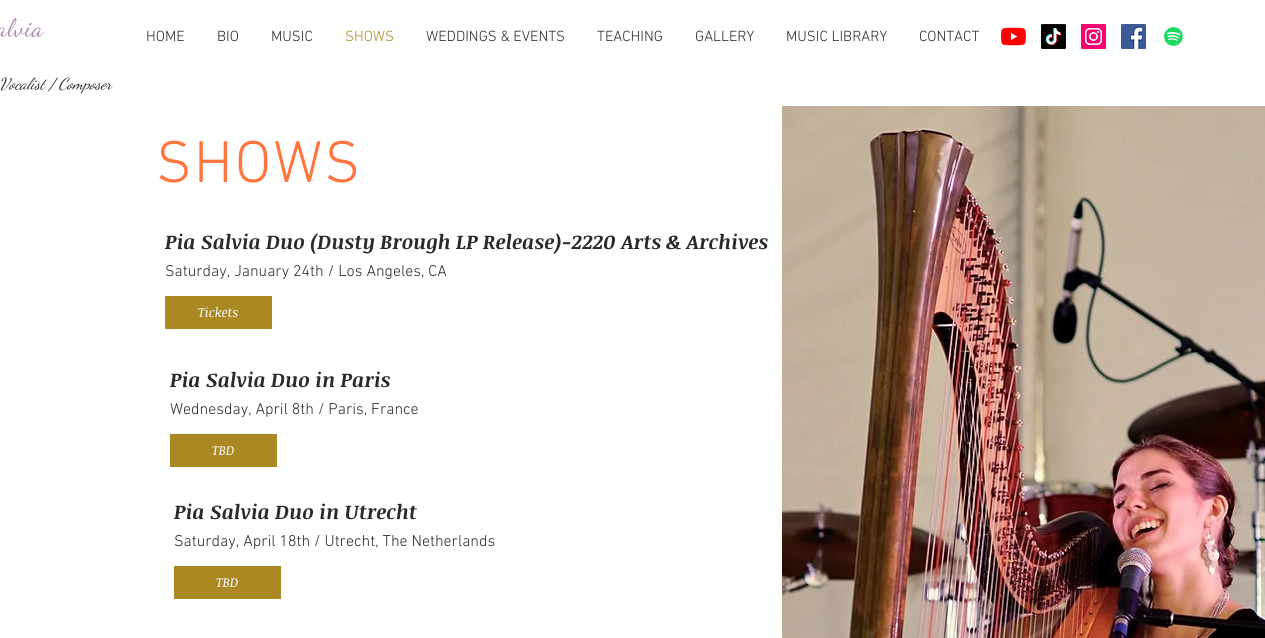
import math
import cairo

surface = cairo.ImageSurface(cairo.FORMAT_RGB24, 1265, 638)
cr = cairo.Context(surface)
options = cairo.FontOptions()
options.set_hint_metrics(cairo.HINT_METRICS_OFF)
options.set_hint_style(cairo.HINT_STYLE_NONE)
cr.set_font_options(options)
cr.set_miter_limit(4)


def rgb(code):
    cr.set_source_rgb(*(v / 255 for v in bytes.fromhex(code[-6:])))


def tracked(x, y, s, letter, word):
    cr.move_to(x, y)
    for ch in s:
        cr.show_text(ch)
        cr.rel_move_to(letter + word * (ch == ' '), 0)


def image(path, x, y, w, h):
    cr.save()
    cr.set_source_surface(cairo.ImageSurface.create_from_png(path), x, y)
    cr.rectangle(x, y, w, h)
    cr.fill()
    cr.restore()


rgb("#ffffff")
cr.paint()
image("img/1.png", 1001, 27, 25, 19)
image("img/2.png", 1041, 24, 25, 25)
image("img/3.png", 1081, 24, 25, 25)
image("img/4.png", 1121, 24, 25, 25)
image("img/5.png", 1163, 27, 20, 19)
image("img/6.png", 782, 106, 483, 532)
for x, y, w, h, color in [
    (165, 296, 107, 33, "#aa8924"),
    (170, 434, 107, 33, "#aa8924"),
    (174, 566, 107, 33, "#aa8924"),
]:
    rgb(color)
    cr.rectangle(x, y, w, h)
    cr.fill()
cr.select_font_face("Dancing Script")
cr.set_font_size(25)
rgb("#af87b0")
tracked(-4, 36, "alvia", 0.75, 0)
cr.select_font_face("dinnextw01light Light")
cr.set_font_size(15)
rgb("#2a2a2a")
for x, y, s in [
    (146, 41, "HOME"),
    (217, 41, "BIO"),
    (271, 41, "MUSIC"),
]:
    cr.move_to(x, y)
    cr.show_text(s)
rgb("#aa8924")
cr.move_to(345, 41)
cr.show_text("SHOWS")
rgb("#2a2a2a")
for x, y, s in [
    (426, 41, "WEDDINGS & EVENTS"),
    (597, 41, "TEACHING"),
    (695, 41, "GALLERY"),
    (786, 41, "MUSIC LIBRARY"),
    (919, 41, "CONTACT"),
]:
    cr.move_to(x, y)
    cr.show_text(s)
cr.select_font_face("Dancing Script", cairo.FONT_SLANT_ITALIC)
cr.set_font_size(16)
cr.move_to(-1, 89)
cr.show_text("Vocalist / Composer")
cr.select_font_face("dinnextw01light Light")
cr.set_font_size(60)
rgb("#fd763f")
tracked(156, 182, "SHOWS", 2, 0)
cr.select_font_face("Noticia Text", cairo.FONT_SLANT_ITALIC, cairo.FONT_WEIGHT_BOLD)
cr.set_font_size(20)
rgb("#2a2a2a")
cr.move_to(165, 249)
cr.show_text("Pia Salvia Duo (Dusty Brough LP Release)-2220 Arts & Archives")
cr.select_font_face("dinnextw01light Light")
cr.set_font_size(16)
cr.move_to(165, 276)
cr.show_text("Saturday, January 24th / Los Angeles, CA")
cr.select_font_face("Noticia Text", cairo.FONT_SLANT_ITALIC)
cr.set_font_size(13)
rgb("#ffffff")
cr.move_to(198, 317)
cr.show_text("Tickets")
cr.select_font_face("Noticia Text", cairo.FONT_SLANT_ITALIC, cairo.FONT_WEIGHT_BOLD)
cr.set_font_size(20)
rgb("#2a2a2a")
cr.move_to(170, 387)
cr.show_text("Pia Salvia Duo in Paris")
cr.select_font_face("dinnextw01light Light")
cr.set_font_size(16)
cr.move_to(170, 414)
cr.show_text("Wednesday, April 8th / Paris, France")
cr.select_font_face("Noticia Text", cairo.FONT_SLANT_ITALIC)
cr.set_font_size(13)
rgb("#ffffff")
cr.move_to(212, 455)
cr.show_text("TBD")
cr.select_font_face("Noticia Text", cairo.FONT_SLANT_ITALIC, cairo.FONT_WEIGHT_BOLD)
cr.set_font_size(20)
rgb("#2a2a2a")
cr.move_to(174, 519)
cr.show_text("Pia Salvia Duo in Utrecht")
cr.select_font_face("dinnextw01light Light")
cr.set_font_size(16)
cr.move_to(174, 546)
cr.show_text("Saturday, April 18th / Utrecht, The Netherlands")
cr.select_font_face("Noticia Text", cairo.FONT_SLANT_ITALIC)
cr.set_font_size(13)
rgb("#ffffff")
cr.move_to(216, 587)
cr.show_text("TBD")
surface.write_to_png("page.png")
